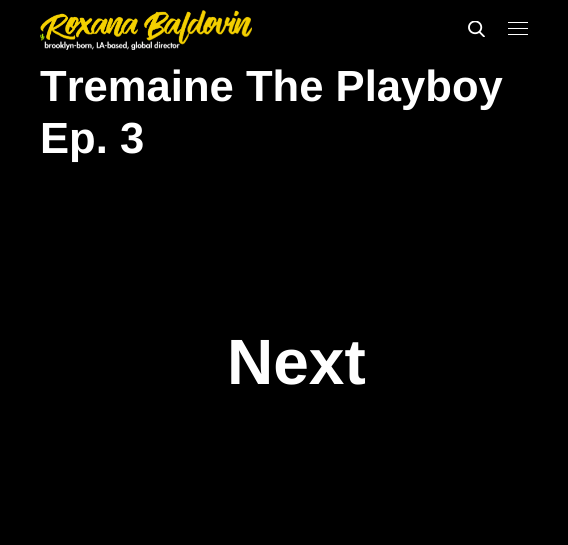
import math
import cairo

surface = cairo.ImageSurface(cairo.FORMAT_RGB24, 568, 545)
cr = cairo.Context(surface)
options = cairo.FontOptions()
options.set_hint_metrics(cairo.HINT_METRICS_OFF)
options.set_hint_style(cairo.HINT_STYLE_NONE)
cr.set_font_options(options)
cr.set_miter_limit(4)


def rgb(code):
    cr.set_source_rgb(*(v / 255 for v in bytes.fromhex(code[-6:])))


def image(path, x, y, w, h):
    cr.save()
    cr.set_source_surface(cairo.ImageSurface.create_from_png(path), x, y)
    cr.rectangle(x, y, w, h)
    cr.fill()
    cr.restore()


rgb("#000000")
cr.paint()
image("img/1.png", 40, 10, 212, 40)
image("img/2.png", 468, 21, 17, 16)
for x, y, w, h, color in [
    (508, 28, 20, 1, "#ffffff"),
    (508, 22, 20, 1, "#ffffff"),
    (508, 34, 20, 1, "#ffffff"),
]:
    rgb(color)
    cr.rectangle(x, y, w, h)
    cr.fill()
cr.select_font_face("Liberation Sans", cairo.FONT_SLANT_NORMAL, cairo.FONT_WEIGHT_BOLD)
cr.set_font_size(43.6)
cr.move_to(40, 101)
cr.show_text("Tremaine The Playboy")
cr.move_to(40, 153)
cr.show_text("Ep. 3")
cr.set_font_size(64)
cr.move_to(227, 384)
cr.show_text("Next")
surface.write_to_png("page.png")
